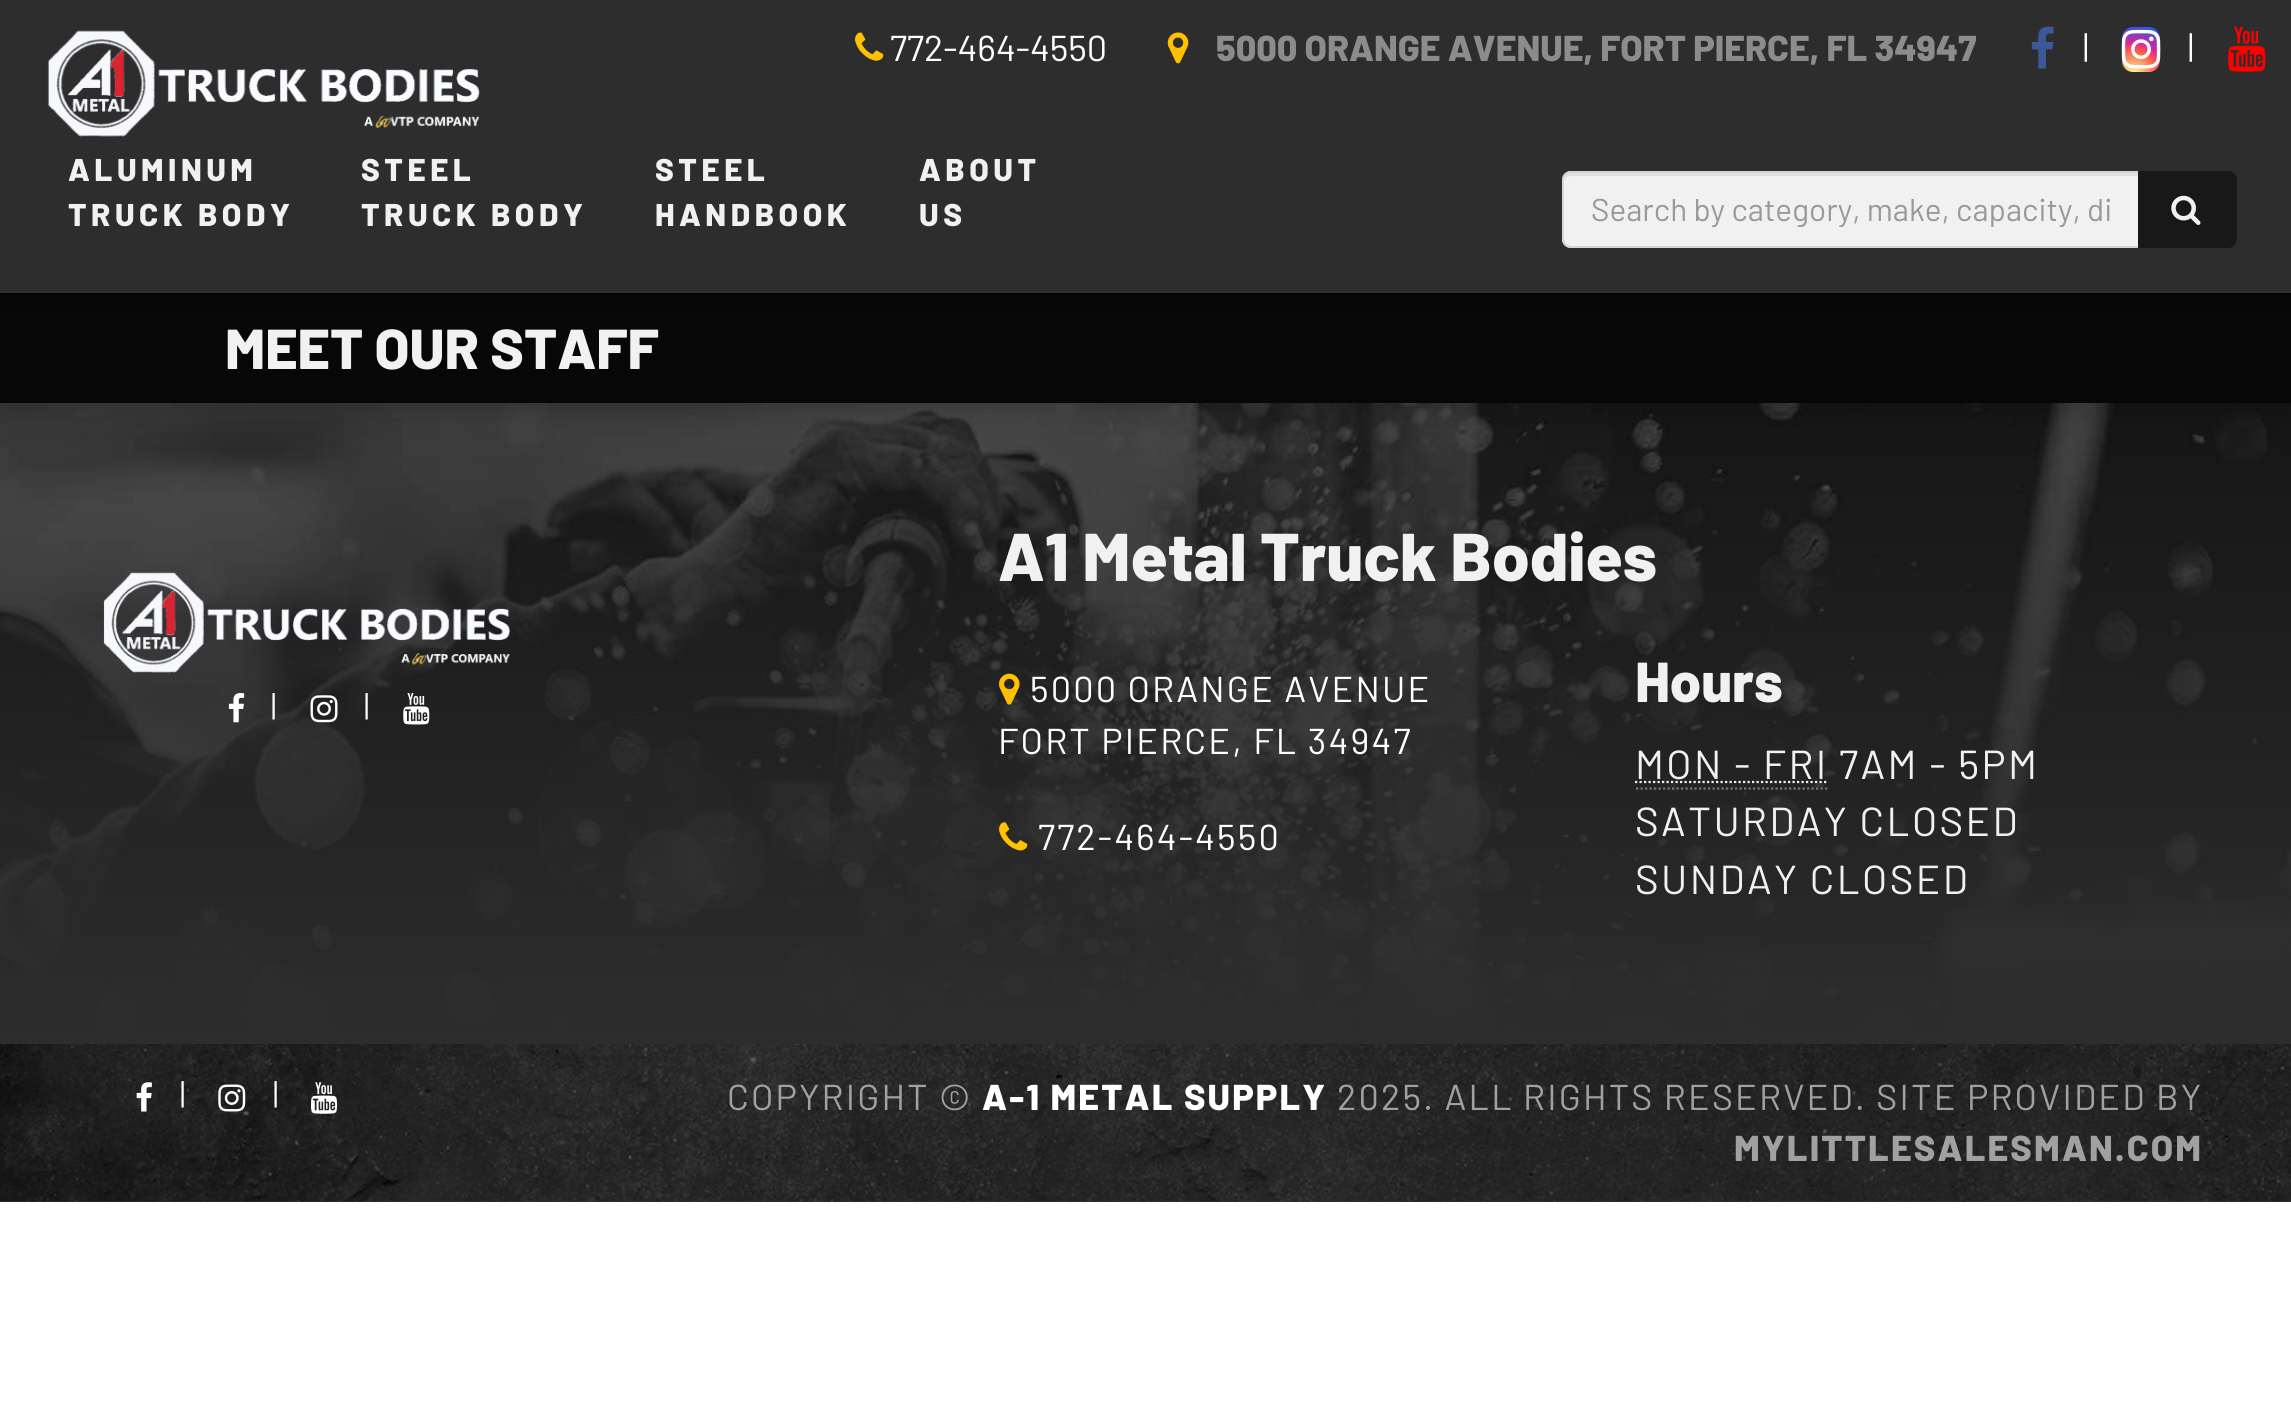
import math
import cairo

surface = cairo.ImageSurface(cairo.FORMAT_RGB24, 2291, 1411)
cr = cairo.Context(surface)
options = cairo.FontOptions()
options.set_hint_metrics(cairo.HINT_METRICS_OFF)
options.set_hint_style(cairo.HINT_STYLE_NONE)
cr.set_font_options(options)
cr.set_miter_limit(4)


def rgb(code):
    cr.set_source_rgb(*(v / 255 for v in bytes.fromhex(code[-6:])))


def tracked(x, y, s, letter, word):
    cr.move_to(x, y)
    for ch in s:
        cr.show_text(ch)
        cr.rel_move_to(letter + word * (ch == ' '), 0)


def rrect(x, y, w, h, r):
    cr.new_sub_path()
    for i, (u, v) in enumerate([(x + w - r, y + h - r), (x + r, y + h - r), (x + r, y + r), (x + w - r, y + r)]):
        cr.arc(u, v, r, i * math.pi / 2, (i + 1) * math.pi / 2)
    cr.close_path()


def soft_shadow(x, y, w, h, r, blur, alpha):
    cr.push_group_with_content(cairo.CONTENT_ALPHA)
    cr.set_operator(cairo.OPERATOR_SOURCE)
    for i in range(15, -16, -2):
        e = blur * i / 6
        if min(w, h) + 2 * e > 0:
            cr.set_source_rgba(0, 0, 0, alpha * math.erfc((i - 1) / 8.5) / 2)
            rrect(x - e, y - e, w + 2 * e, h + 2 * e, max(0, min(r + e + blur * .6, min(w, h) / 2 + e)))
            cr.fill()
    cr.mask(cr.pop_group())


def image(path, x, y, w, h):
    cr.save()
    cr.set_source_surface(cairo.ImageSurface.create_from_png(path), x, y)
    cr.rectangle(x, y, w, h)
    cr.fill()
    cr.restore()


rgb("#ffffff")
cr.paint()
image("img/8.png", 0, 403, 2291, 641)
rgb("#000000")
soft_shadow(0, 297, 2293, 110, 0, 16, 0.25)
rgb("#070707")
cr.rectangle(0, 293, 2291, 110)
cr.fill()
rgb("#000000")
soft_shadow(0, 0, 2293, 293, 0, 11, 0.5)
rgb("#2d2d2d")
cr.rectangle(0, 0, 2291, 293)
cr.fill()
image("img/1.png", 47, 30, 433, 107)
image("img/2.png", 855, 32, 29, 29)
image("img/3.png", 1167, 32, 22, 32)
image("img/4.png", 2031, 26, 23, 43)
gradient = cairo.RadialGradient(2133, 75, 0, 2133, 75, 55)
gradient.add_color_stop_rgba(0, 0.992, 0.957, 0.592, 1)
gradient.add_color_stop_rgba(0.05, 0.992, 0.957, 0.592, 1)
gradient.add_color_stop_rgba(0.45, 0.992, 0.349, 0.286, 1)
gradient.add_color_stop_rgba(0.6, 0.839, 0.141, 0.624, 1)
gradient.add_color_stop_rgba(0.9, 0.157, 0.353, 0.922, 1)
cr.set_source(gradient)
rrect(2122, 27, 38, 45, 11)
cr.fill()
image("img/5.png", 2121, 29, 40, 40)
image("img/6.png", 2228, 26, 38, 46)
rgb("#f1f1f1")
cr.new_path()
cr.move_to(1571, 171)
cr.line_to(2140, 171)
cr.line_to(2140, 248)
cr.line_to(1571, 248)
cr.curve_to(1566, 248, 1562, 244, 1562, 239)
cr.line_to(1562, 180)
cr.curve_to(1562, 175, 1566, 171, 1571, 171)
cr.close_path()
cr.fill()
rgb("#dfdfdf")
cr.new_path()
cr.move_to(1570, 176)
cr.line_to(2138, 176)
cr.line_to(2138, 173)
cr.line_to(1571, 173)
cr.curve_to(1566, 173, 1564, 178, 1564, 182)
cr.curve_to(1564, 179, 1567, 176, 1570, 176)
cr.close_path()
cr.fill()
cr.new_path()
cr.move_to(1571, 172)
cr.line_to(2139, 172)
cr.line_to(2139, 247)
cr.line_to(1571, 247)
cr.curve_to(1566.5, 247, 1563, 243.5, 1563, 239)
cr.line_to(1563, 180)
cr.curve_to(1563, 175.5, 1566.5, 172, 1571, 172)
cr.close_path()
rgb("#d4d4d4")
cr.stroke()
rgb("#181818")
cr.new_path()
cr.move_to(2139, 172)
cr.line_to(2228, 172)
cr.curve_to(2232.5, 172, 2236, 175.5, 2236, 180)
cr.line_to(2236, 239)
cr.curve_to(2236, 243.5, 2232.5, 247, 2228, 247)
cr.line_to(2139, 247)
cr.close_path()
cr.fill_preserve()
cr.stroke()
image("img/7.png", 2171, 195, 30, 30)
image("img/9.png", 103, 572, 408, 101)
image("img/10.png", 228, 693, 17, 30)
image("img/11.png", 310, 695, 28, 28)
image("img/12.png", 403, 693, 27, 32)
image("img/13.png", 999, 673, 21, 32)
image("img/14.png", 999, 822, 29, 29)
cr.new_path()
cr.move_to(1636, 788.5)
cr.line_to(1829, 788.5)
rgb("#777777")
cr.set_line_width(2.2)
cr.set_dash([2.25, 2.25])
cr.stroke()
cr.new_path()
cr.move_to(1635, 782)
cr.line_to(1828.5, 782)
rgb("#f1f1f1")
cr.stroke()
rgb("#181818")
cr.rectangle(0, 1201, 2291, 1)
cr.fill()
image("img/15.png", 0, 1044, 2291, 158)
image("img/16.png", 136, 1082, 16, 30)
image("img/17.png", 218, 1084, 28, 28)
image("img/18.png", 311, 1082, 26, 32)
cr.select_font_face("Barlow")
cr.set_font_size(36)
rgb("#ffffff")
cr.move_to(890, 61)
cr.show_text("772-464-4550")
cr.select_font_face("Barlow ExtraBold")
rgb("#8c8c8c")
cr.move_to(1216, 61)
cr.show_text("5000 ORANGE AVENUE, FORT PIERCE, FL 34947")
cr.select_font_face("Barlow")
cr.set_font_size(34)
rgb("#ffffff")
cr.move_to(2083, 59)
cr.show_text("|")
cr.move_to(2188, 59)
cr.show_text("|")
cr.select_font_face("Barlow ExtraBold")
cr.set_font_size(31.5)
rgb("#f1f1f1")
for x, y, s in [
    (68, 181, "ALUMINUM"),
    (68, 226, "TRUCK BODY"),
    (361, 181, "STEEL"),
    (361, 226, "TRUCK BODY"),
    (655, 181, "STEEL"),
    (655, 226, "HANDBOOK"),
    (919, 181, "ABOUT"),
    (919, 226, "US"),
]:
    tracked(x, y, s, 4.5, 0)
cr.save()
cr.rectangle(1591, 189, 520, 38)
cr.clip()
cr.select_font_face("Barlow")
rgb("#999999")
cr.move_to(1591, 221)
cr.show_text("Search by category, make, capacity, di")
cr.restore()
cr.set_font_size(56.25)
cr.move_to(225, 369)
cr.show_text("MEET OUR STAFF")
cr.select_font_face("Barlow")
cr.set_font_size(31.5)
rgb("#ffffff")
cr.move_to(271, 717)
cr.show_text("|")
cr.move_to(364, 717)
cr.show_text("|")
cr.select_font_face("Barlow ExtraBold")
cr.set_font_size(67.5)
rgb("#f1f1f1")
cr.move_to(998, 581)
cr.show_text("A1 Metal Truck Bodies")
cr.select_font_face("Barlow")
cr.set_font_size(36)
rgb("#ffffff")
for x, y, s in [
    (1030, 702, "5000 ORANGE AVENUE"),
    (998, 754, "FORT PIERCE, FL 34947"),
    (1038, 850, "772-464-4550"),
]:
    tracked(x, y, s, 2.15, 0)
cr.select_font_face("Barlow ExtraBold")
cr.set_font_size(56.25)
rgb("#f1f1f1")
cr.move_to(1635, 702)
cr.show_text("Hours")
cr.select_font_face("Barlow")
cr.set_font_size(40.5)
for x, y, s in [
    (1635, 779, "MON - FRI 7AM - 5PM"),
    (1635, 836, "SATURDAY CLOSED"),
    (1635, 894, "SUNDAY CLOSED"),
]:
    tracked(x, y, s, 2.4, 0)
cr.set_font_size(31.5)
rgb("#ffffff")
cr.move_to(180, 1105)
cr.show_text("|")
cr.move_to(273, 1105)
cr.show_text("|")
cr.set_font_size(36)
rgb("#a1a1a1")
tracked(727, 1110, "COPYRIGHT ©", 2.15, 0)
cr.select_font_face("Barlow ExtraBold")
rgb("#ffffff")
tracked(982, 1110, "A-1 METAL SUPPLY", 2.15, 0)
cr.select_font_face("Barlow")
rgb("#a1a1a1")
tracked(1337, 1110, "2025. ALL RIGHTS RESERVED. SITE PROVIDED BY", 2.15, 0)
cr.select_font_face("Barlow ExtraBold")
tracked(1734, 1161, "MYLITTLESALESMAN.COM", 2.15, 0)
surface.write_to_png("page.png")
